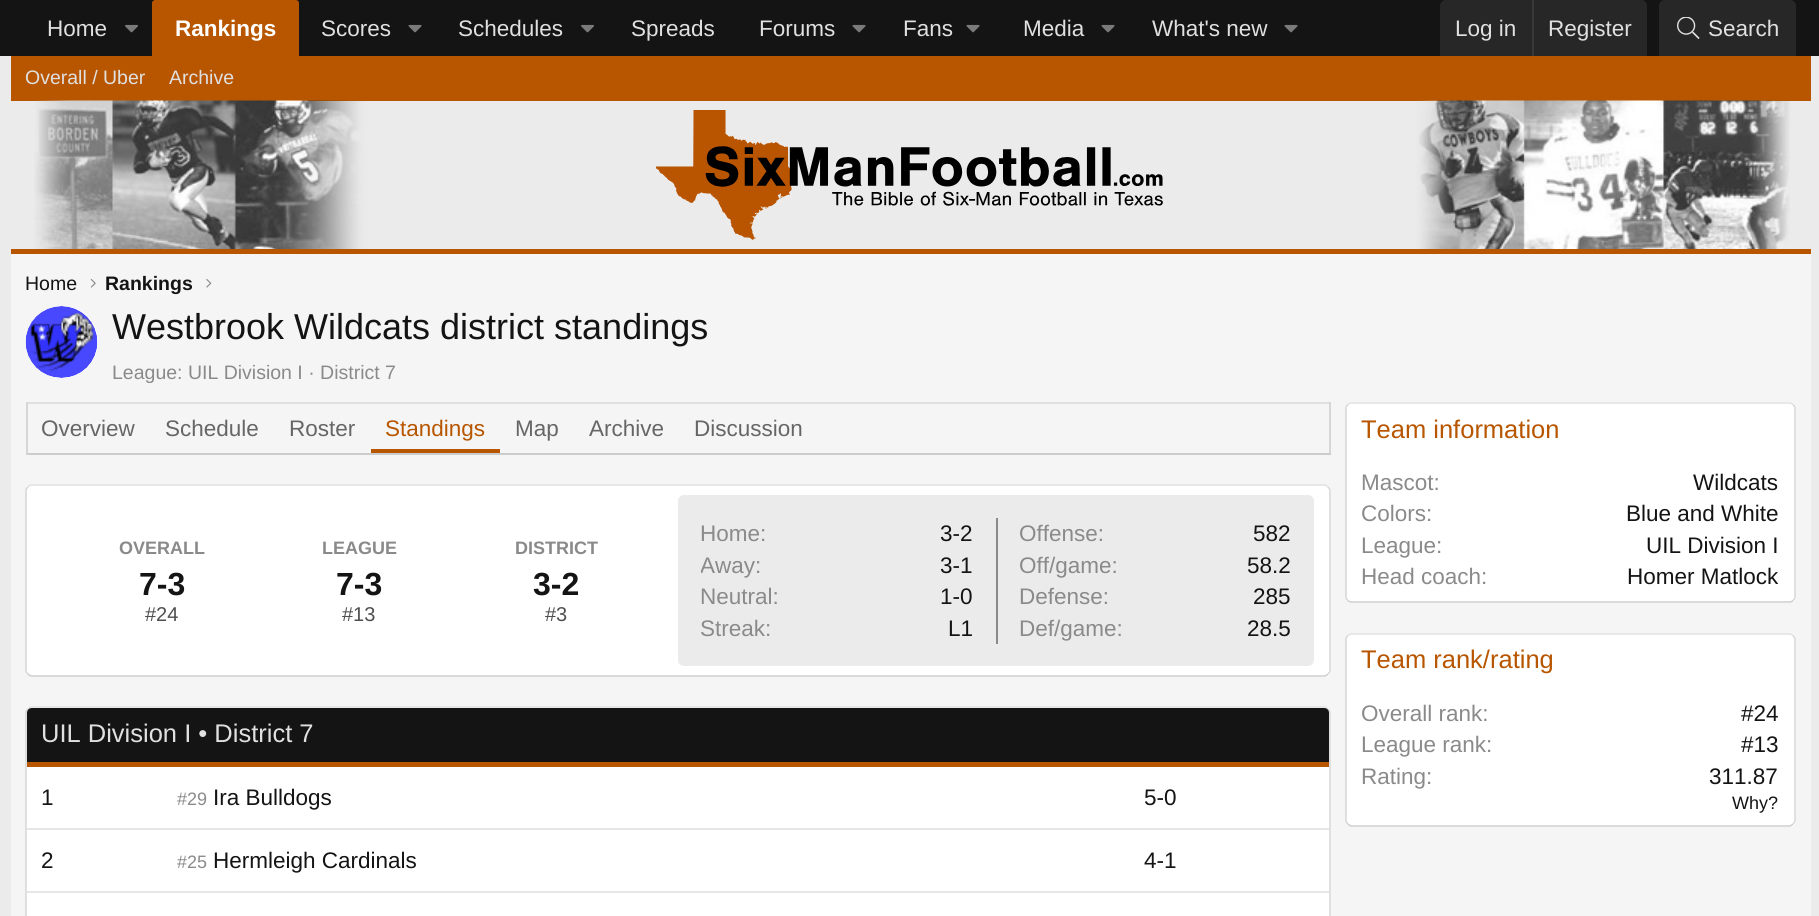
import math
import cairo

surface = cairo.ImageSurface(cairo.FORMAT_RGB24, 1819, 916)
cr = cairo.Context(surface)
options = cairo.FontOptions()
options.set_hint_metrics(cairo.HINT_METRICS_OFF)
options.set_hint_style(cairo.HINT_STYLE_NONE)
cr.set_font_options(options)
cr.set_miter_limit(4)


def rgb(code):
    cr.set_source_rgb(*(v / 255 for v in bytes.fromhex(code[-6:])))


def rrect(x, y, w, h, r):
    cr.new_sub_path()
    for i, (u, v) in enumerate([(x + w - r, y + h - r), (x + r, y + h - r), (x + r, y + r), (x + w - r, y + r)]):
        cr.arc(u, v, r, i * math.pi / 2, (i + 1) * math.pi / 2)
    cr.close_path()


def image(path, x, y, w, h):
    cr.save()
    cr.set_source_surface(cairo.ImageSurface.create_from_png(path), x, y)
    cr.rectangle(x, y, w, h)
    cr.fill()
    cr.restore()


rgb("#ebebeb")
cr.paint()
rgb("#141414")
cr.rectangle(0, 0, 1819, 56)
cr.fill()
image("img/1.png", 125, 24, 13, 9)
rgb("#b85600")
cr.new_path()
cr.move_to(155, 0)
cr.line_to(296, 0)
cr.curve_to(297.5, 0, 299, 1.5, 299, 3)
cr.line_to(299, 56)
cr.line_to(152, 56)
cr.line_to(152, 3)
cr.curve_to(152, 1.5, 153.5, 0, 155, 0)
cr.close_path()
cr.fill()
image("img/2.png", 408, 24, 14, 9)
image("img/1.png", 581, 24, 13, 9)
image("img/2.png", 852, 24, 14, 9)
image("img/2.png", 966, 24, 14, 9)
image("img/2.png", 1101, 24, 14, 9)
image("img/2.png", 1284, 24, 14, 9)
rgb("#272727")
cr.new_path()
cr.move_to(1446, 0)
cr.line_to(1641, 0)
cr.curve_to(1644.5, 0, 1647, 2.5, 1647, 6)
cr.line_to(1647, 56)
cr.line_to(1440, 56)
cr.line_to(1440, 6)
cr.curve_to(1440, 2.5, 1442.5, 0, 1446, 0)
cr.close_path()
cr.fill()
rgb("#383838")
cr.rectangle(1532, 0, 2, 56)
cr.fill()
rgb("#272727")
cr.new_path()
cr.move_to(1665, 0)
cr.line_to(1790, 0)
cr.curve_to(1793.5, 0, 1796, 2.5, 1796, 6)
cr.line_to(1796, 56)
cr.line_to(1659, 56)
cr.line_to(1659, 6)
cr.curve_to(1659, 2.5, 1661.5, 0, 1665, 0)
cr.close_path()
cr.fill()
image("img/3.png", 1677, 17, 23, 22)
rgb("#b85600")
cr.rectangle(11, 56, 1800, 45)
cr.fill()
image("img/4.png", 34, 100, 1756, 149)
image("img/5.png", 656, 110, 507, 130)
rgb("#f5f5f5")
cr.rectangle(11, 254, 1800, 662)
cr.fill()
rgb("#b85600")
cr.rectangle(11, 249, 1800, 5)
cr.fill()
image("img/6.png", 90, 279, 6, 9)
image("img/7.png", 206, 279, 6, 9)
rgb("#ffffff")
cr.arc(62, 342, 36, 0, 2 * math.pi)
cr.fill()
image("img/8.png", 25, 306, 73, 72)
for x, y, w, h, color in [
    (26, 402, 1305, 2, "#e0e0e0"),
    (1329, 402, 2, 53, "#d6d6d6"),
    (26, 453, 1305, 2, "#cccccc"),
    (26, 402, 2, 53, "#d6d6d6"),
    (371, 449, 129, 4, "#b85600"),
]:
    rgb(color)
    cr.rectangle(x, y, w, h)
    cr.fill()
rgb("#ffffff")
rrect(26, 485, 1305, 192, 6)
cr.fill()
cr.new_path()
cr.move_to(28, 487)
cr.curve_to(29, 486, 30, 485, 31.5, 485)
cr.line_to(1324.5, 485)
cr.curve_to(1326, 485, 1327, 486, 1328, 487)
rgb("#e0e0e0")
cr.set_line_width(1.5)
cr.stroke()
cr.new_path()
cr.move_to(1328, 487)
cr.curve_to(1329, 488, 1330, 489, 1330, 490.5)
cr.line_to(1330, 670.5)
cr.curve_to(1330, 672, 1329, 673, 1328, 674)
rgb("#d6d6d6")
cr.stroke()
cr.new_path()
cr.move_to(1328, 674)
cr.curve_to(1327, 675, 1326, 676, 1324.5, 676)
cr.line_to(31.5, 676)
cr.curve_to(30, 676, 29, 675, 28, 674)
rgb("#cccccc")
cr.stroke()
cr.new_path()
cr.move_to(28, 674)
cr.curve_to(27, 673, 26, 672, 26, 670.5)
cr.line_to(26, 490.5)
cr.curve_to(26, 489, 27, 488, 28, 487)
rgb("#d6d6d6")
cr.stroke()
rgb("#ebebeb")
rrect(678, 495, 636, 171, 6)
cr.fill()
rgb("#8a8a8a")
cr.rectangle(996, 518, 2, 126)
cr.fill()
rgb("#ffffff")
rrect(26, 707, 1305, 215, 6)
cr.fill()
cr.new_path()
cr.move_to(28, 709)
cr.curve_to(29, 708, 30, 707, 31.5, 707)
cr.line_to(1324.5, 707)
cr.curve_to(1326, 707, 1327, 708, 1328, 709)
rgb("#e0e0e0")
cr.stroke()
cr.new_path()
cr.move_to(1328, 709)
cr.curve_to(1329, 710, 1330, 711, 1330, 712.5)
cr.line_to(1330, 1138.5)
cr.curve_to(1330, 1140, 1329, 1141, 1328, 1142)
rgb("#d6d6d6")
cr.stroke()
cr.new_path()
cr.move_to(28, 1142)
cr.curve_to(27, 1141, 26, 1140, 26, 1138.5)
cr.line_to(26, 712.5)
cr.curve_to(26, 711, 27, 710, 28, 709)
cr.stroke()
rgb("#141414")
cr.new_path()
cr.move_to(32, 708)
cr.line_to(1324, 708)
cr.curve_to(1327, 708, 1329, 710, 1329, 713)
cr.line_to(1329, 767)
cr.line_to(27, 767)
cr.line_to(27, 713)
cr.curve_to(27, 710, 29, 708, 32, 708)
cr.close_path()
cr.fill()
for x, y, w, h, color in [
    (27, 762, 1302, 5, "#b85600"),
    (27, 828, 1302, 2, "#e6e6e6"),
    (27, 891, 1302, 2, "#e6e6e6"),
]:
    rgb(color)
    cr.rectangle(x, y, w, h)
    cr.fill()
rgb("#ffffff")
rrect(1346, 402, 450, 201, 6)
cr.fill()
cr.new_path()
cr.move_to(1348, 404.5)
cr.curve_to(1349, 403.5, 1350, 403, 1351.5, 403)
cr.line_to(1789.5, 403)
cr.curve_to(1791, 403, 1792, 403.5, 1793, 404.5)
rgb("#e0e0e0")
cr.stroke()
cr.new_path()
cr.move_to(1793, 404.5)
cr.curve_to(1794, 405.5, 1795, 406.5, 1795, 408)
cr.line_to(1795, 597)
cr.curve_to(1795, 598.5, 1794, 599.5, 1793, 600.5)
rgb("#d6d6d6")
cr.stroke()
cr.new_path()
cr.move_to(1793, 600.5)
cr.curve_to(1792, 601.5, 1791, 602, 1789.5, 602)
cr.line_to(1351.5, 602)
cr.curve_to(1350, 602, 1349, 601.5, 1348, 600.5)
rgb("#cccccc")
cr.stroke()
cr.new_path()
cr.move_to(1348, 600.5)
cr.curve_to(1347, 599.5, 1346, 598.5, 1346, 597)
cr.line_to(1346, 408)
cr.curve_to(1346, 406.5, 1347, 405.5, 1348, 404.5)
rgb("#d6d6d6")
cr.stroke()
rgb("#ffffff")
rrect(1346, 633, 450, 194, 6)
cr.fill()
cr.new_path()
cr.move_to(1348, 635.5)
cr.curve_to(1349, 634.5, 1350, 634, 1351.5, 634)
cr.line_to(1789.5, 634)
cr.curve_to(1791, 634, 1792, 634.5, 1793, 635.5)
rgb("#e0e0e0")
cr.stroke()
cr.new_path()
cr.move_to(1793, 635.5)
cr.curve_to(1794, 636.5, 1795, 637.5, 1795, 639)
cr.line_to(1795, 820.5)
cr.curve_to(1795, 822, 1794, 823, 1793, 824)
rgb("#d6d6d6")
cr.stroke()
cr.new_path()
cr.move_to(1793, 824)
cr.curve_to(1792, 825, 1791, 826, 1789.5, 826)
cr.line_to(1351.5, 826)
cr.curve_to(1350, 826, 1349, 825, 1348, 824)
rgb("#cccccc")
cr.stroke()
cr.new_path()
cr.move_to(1348, 824)
cr.curve_to(1347, 823, 1346, 822, 1346, 820.5)
cr.line_to(1346, 639)
cr.curve_to(1346, 637.5, 1347, 636.5, 1348, 635.5)
rgb("#d6d6d6")
cr.stroke()
cr.select_font_face("Liberation Sans")
cr.set_font_size(22.5)
rgb("#e0e0e0")
cr.move_to(47, 36)
cr.show_text("Home")
cr.select_font_face("Liberation Sans", cairo.FONT_SLANT_NORMAL, cairo.FONT_WEIGHT_BOLD)
rgb("#ffffff")
cr.move_to(175, 36)
cr.show_text("Rankings")
cr.select_font_face("Liberation Sans")
rgb("#e0e0e0")
for x, y, s in [
    (321, 36, "Scores"),
    (458, 36, "Schedules"),
    (631, 36, "Spreads"),
    (759, 36, "Forums"),
    (903, 36, "Fans"),
    (1023, 36, "Media"),
    (1152, 36, "What's new"),
    (1455, 36, "Log in"),
    (1548, 36, "Register"),
    (1708, 36, "Search"),
]:
    cr.move_to(x, y)
    cr.show_text(s)
cr.set_font_size(19.5)
cr.move_to(25, 84)
cr.show_text("Overall / Uber")
cr.move_to(169, 84)
cr.show_text("Archive")
rgb("#141414")
cr.move_to(25, 290)
cr.show_text("Home")
cr.select_font_face("Liberation Sans", cairo.FONT_SLANT_NORMAL, cairo.FONT_WEIGHT_BOLD)
cr.move_to(105, 290)
cr.show_text("Rankings")
cr.select_font_face("Liberation Sans")
cr.set_font_size(36)
cr.move_to(112, 339)
cr.show_text("Westbrook Wildcats district standings")
cr.set_font_size(19.5)
rgb("#8a8a8a")
cr.move_to(112, 379)
cr.show_text("League: UIL Division I · District 7")
cr.set_font_size(22.5)
rgb("#666666")
for x, y, s in [
    (41, 436, "Overview"),
    (165, 436, "Schedule"),
    (289, 436, "Roster"),
]:
    cr.move_to(x, y)
    cr.show_text(s)
rgb("#b85600")
cr.move_to(385, 436)
cr.show_text("Standings")
rgb("#666666")
for x, y, s in [
    (515, 436, "Map"),
    (589, 436, "Archive"),
    (694, 436, "Discussion"),
]:
    cr.move_to(x, y)
    cr.show_text(s)
cr.select_font_face("Liberation Sans", cairo.FONT_SLANT_NORMAL, cairo.FONT_WEIGHT_BOLD)
cr.set_font_size(18)
rgb("#8a8a8a")
cr.move_to(119, 554)
cr.show_text("OVERALL")
cr.set_font_size(32)
rgb("#141414")
cr.move_to(139, 595)
cr.show_text("7-3")
cr.select_font_face("Liberation Sans")
cr.set_font_size(20)
rgb("#4f4f4f")
cr.move_to(145, 621)
cr.show_text("#24")
cr.select_font_face("Liberation Sans", cairo.FONT_SLANT_NORMAL, cairo.FONT_WEIGHT_BOLD)
cr.set_font_size(18)
rgb("#8a8a8a")
cr.move_to(322, 554)
cr.show_text("LEAGUE")
cr.set_font_size(32)
rgb("#141414")
cr.move_to(336, 595)
cr.show_text("7-3")
cr.select_font_face("Liberation Sans")
cr.set_font_size(20)
rgb("#4f4f4f")
cr.move_to(342, 621)
cr.show_text("#13")
cr.select_font_face("Liberation Sans", cairo.FONT_SLANT_NORMAL, cairo.FONT_WEIGHT_BOLD)
cr.set_font_size(18)
rgb("#8a8a8a")
cr.move_to(515, 554)
cr.show_text("DISTRICT")
cr.set_font_size(32)
rgb("#141414")
cr.move_to(533, 595)
cr.show_text("3-2")
cr.select_font_face("Liberation Sans")
cr.set_font_size(20)
rgb("#4f4f4f")
cr.move_to(545, 621)
cr.show_text("#3")
cr.set_font_size(22.5)
rgb("#8a8a8a")
cr.move_to(700, 541)
cr.show_text("Home:")
rgb("#141414")
cr.move_to(940, 541)
cr.show_text("3-2")
cr.save()
cr.rectangle(701, 549, 295, 32)
cr.clip()
rgb("#8a8a8a")
cr.move_to(700, 573)
cr.show_text("Away")
cr.restore()
rgb("#8a8a8a")
cr.move_to(755, 573)
cr.show_text(":")
rgb("#141414")
cr.move_to(940, 573)
cr.show_text("3-1")
rgb("#8a8a8a")
cr.move_to(700, 604)
cr.show_text("Neutral:")
rgb("#141414")
cr.move_to(940, 604)
cr.show_text("1-0")
rgb("#8a8a8a")
cr.move_to(700, 636)
cr.show_text("Streak:")
rgb("#141414")
cr.move_to(948, 636)
cr.show_text("L1")
rgb("#8a8a8a")
cr.move_to(1019, 541)
cr.show_text("Offense:")
rgb("#141414")
cr.move_to(1253, 541)
cr.show_text("582")
rgb("#8a8a8a")
cr.move_to(1019, 573)
cr.show_text("Off/game:")
rgb("#141414")
cr.move_to(1247, 573)
cr.show_text("58.2")
rgb("#8a8a8a")
cr.move_to(1019, 604)
cr.show_text("Defense:")
rgb("#141414")
cr.move_to(1253, 604)
cr.show_text("285")
rgb("#8a8a8a")
cr.move_to(1019, 636)
cr.show_text("Def/game:")
rgb("#141414")
cr.move_to(1247, 636)
cr.show_text("28.5")
cr.set_font_size(25.5)
rgb("#e0e0e0")
cr.move_to(41, 742)
cr.show_text("UIL Division I • District 7")
cr.set_font_size(22.5)
rgb("#141414")
cr.move_to(41, 805)
cr.show_text("1")
cr.set_font_size(18)
rgb("#8a8a8a")
cr.move_to(177, 805)
cr.show_text("#29")
cr.set_font_size(22.5)
rgb("#141414")
for x, y, s in [
    (213, 805, "Ira Bulldogs"),
    (1144, 805, "5-0"),
    (41, 868, "2"),
]:
    cr.move_to(x, y)
    cr.show_text(s)
cr.set_font_size(18)
rgb("#8a8a8a")
cr.move_to(177, 868)
cr.show_text("#25")
cr.set_font_size(22.5)
rgb("#141414")
cr.move_to(213, 868)
cr.show_text("Hermleigh Cardinals")
cr.move_to(1144, 868)
cr.show_text("4-1")
cr.set_font_size(25.5)
rgb("#b85600")
cr.move_to(1361, 438)
cr.show_text("Team information")
cr.set_font_size(22.5)
rgb("#8a8a8a")
cr.move_to(1361, 490)
cr.show_text("Mascot:")
rgb("#141414")
cr.move_to(1693, 490)
cr.show_text("Wildcats")
rgb("#8a8a8a")
cr.move_to(1361, 521)
cr.show_text("Colors:")
rgb("#141414")
cr.move_to(1626, 521)
cr.show_text("Blue and White")
rgb("#8a8a8a")
cr.move_to(1361, 553)
cr.show_text("League:")
rgb("#141414")
cr.move_to(1646, 553)
cr.show_text("UIL Division I")
rgb("#8a8a8a")
cr.move_to(1361, 584)
cr.show_text("Head coach:")
rgb("#141414")
cr.move_to(1627, 584)
cr.show_text("Homer Matlock")
cr.set_font_size(25.5)
rgb("#b85600")
cr.move_to(1361, 668)
cr.show_text("Team rank/rating")
cr.set_font_size(22.5)
rgb("#8a8a8a")
cr.move_to(1361, 721)
cr.show_text("Overall rank:")
rgb("#141414")
cr.move_to(1741, 721)
cr.show_text("#24")
rgb("#8a8a8a")
cr.move_to(1361, 752)
cr.show_text("League rank:")
rgb("#141414")
cr.move_to(1741, 752)
cr.show_text("#13")
rgb("#8a8a8a")
cr.move_to(1361, 784)
cr.show_text("Rating:")
rgb("#141414")
cr.move_to(1709, 784)
cr.show_text("311.87")
cr.set_font_size(18)
cr.move_to(1732, 809)
cr.show_text("Why?")
surface.write_to_png("page.png")
